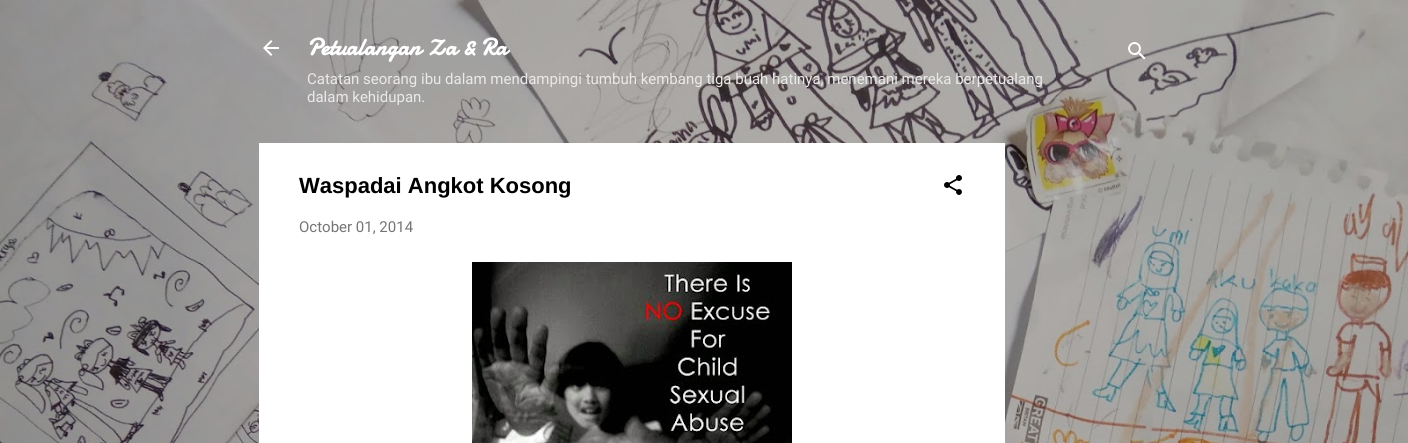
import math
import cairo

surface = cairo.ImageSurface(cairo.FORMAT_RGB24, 1408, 443)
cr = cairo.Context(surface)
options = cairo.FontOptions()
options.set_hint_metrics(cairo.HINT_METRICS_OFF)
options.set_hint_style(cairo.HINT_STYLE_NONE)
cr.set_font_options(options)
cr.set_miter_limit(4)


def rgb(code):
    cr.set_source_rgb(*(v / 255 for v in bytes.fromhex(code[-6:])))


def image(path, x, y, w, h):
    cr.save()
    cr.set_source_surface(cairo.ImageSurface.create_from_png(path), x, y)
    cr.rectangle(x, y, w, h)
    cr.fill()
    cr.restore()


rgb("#ffffff")
cr.paint()
image("img/1.png", 0, 0, 1408, 443)
image("img/2.png", 263, 40, 16, 16)
image("img/3.png", 1128, 42, 18, 18)
rgb("#ffffff")
cr.rectangle(259, 143, 746, 300)
cr.fill()
image("img/4.png", 944, 175, 18, 20)
image("img/5.png", 472, 262, 320, 181)
cr.select_font_face("Damion", cairo.FONT_SLANT_NORMAL, cairo.FONT_WEIGHT_BOLD)
cr.set_font_size(24)
cr.move_to(307, 55)
cr.show_text("Petualangan Za & Ra")
cr.select_font_face("Roboto")
cr.set_font_size(15)
rgb("#eae9e9")
cr.move_to(307, 84)
cr.show_text("Catatan seorang ibu dalam mendampingi tumbuh kembang tiga buah hatinya, menemani mereka berpetualang")
cr.move_to(307, 102)
cr.show_text("dalam kehidupan.")
cr.select_font_face("Liberation Sans", cairo.FONT_SLANT_NORMAL, cairo.FONT_WEIGHT_BOLD)
cr.set_font_size(22)
rgb("#000000")
cr.move_to(299, 193)
cr.show_text("Waspadai Angkot Kosong")
cr.select_font_face("Roboto")
cr.set_font_size(15)
rgb("#757575")
cr.move_to(299, 232)
cr.show_text("October 01, 2014")
surface.write_to_png("page.png")
